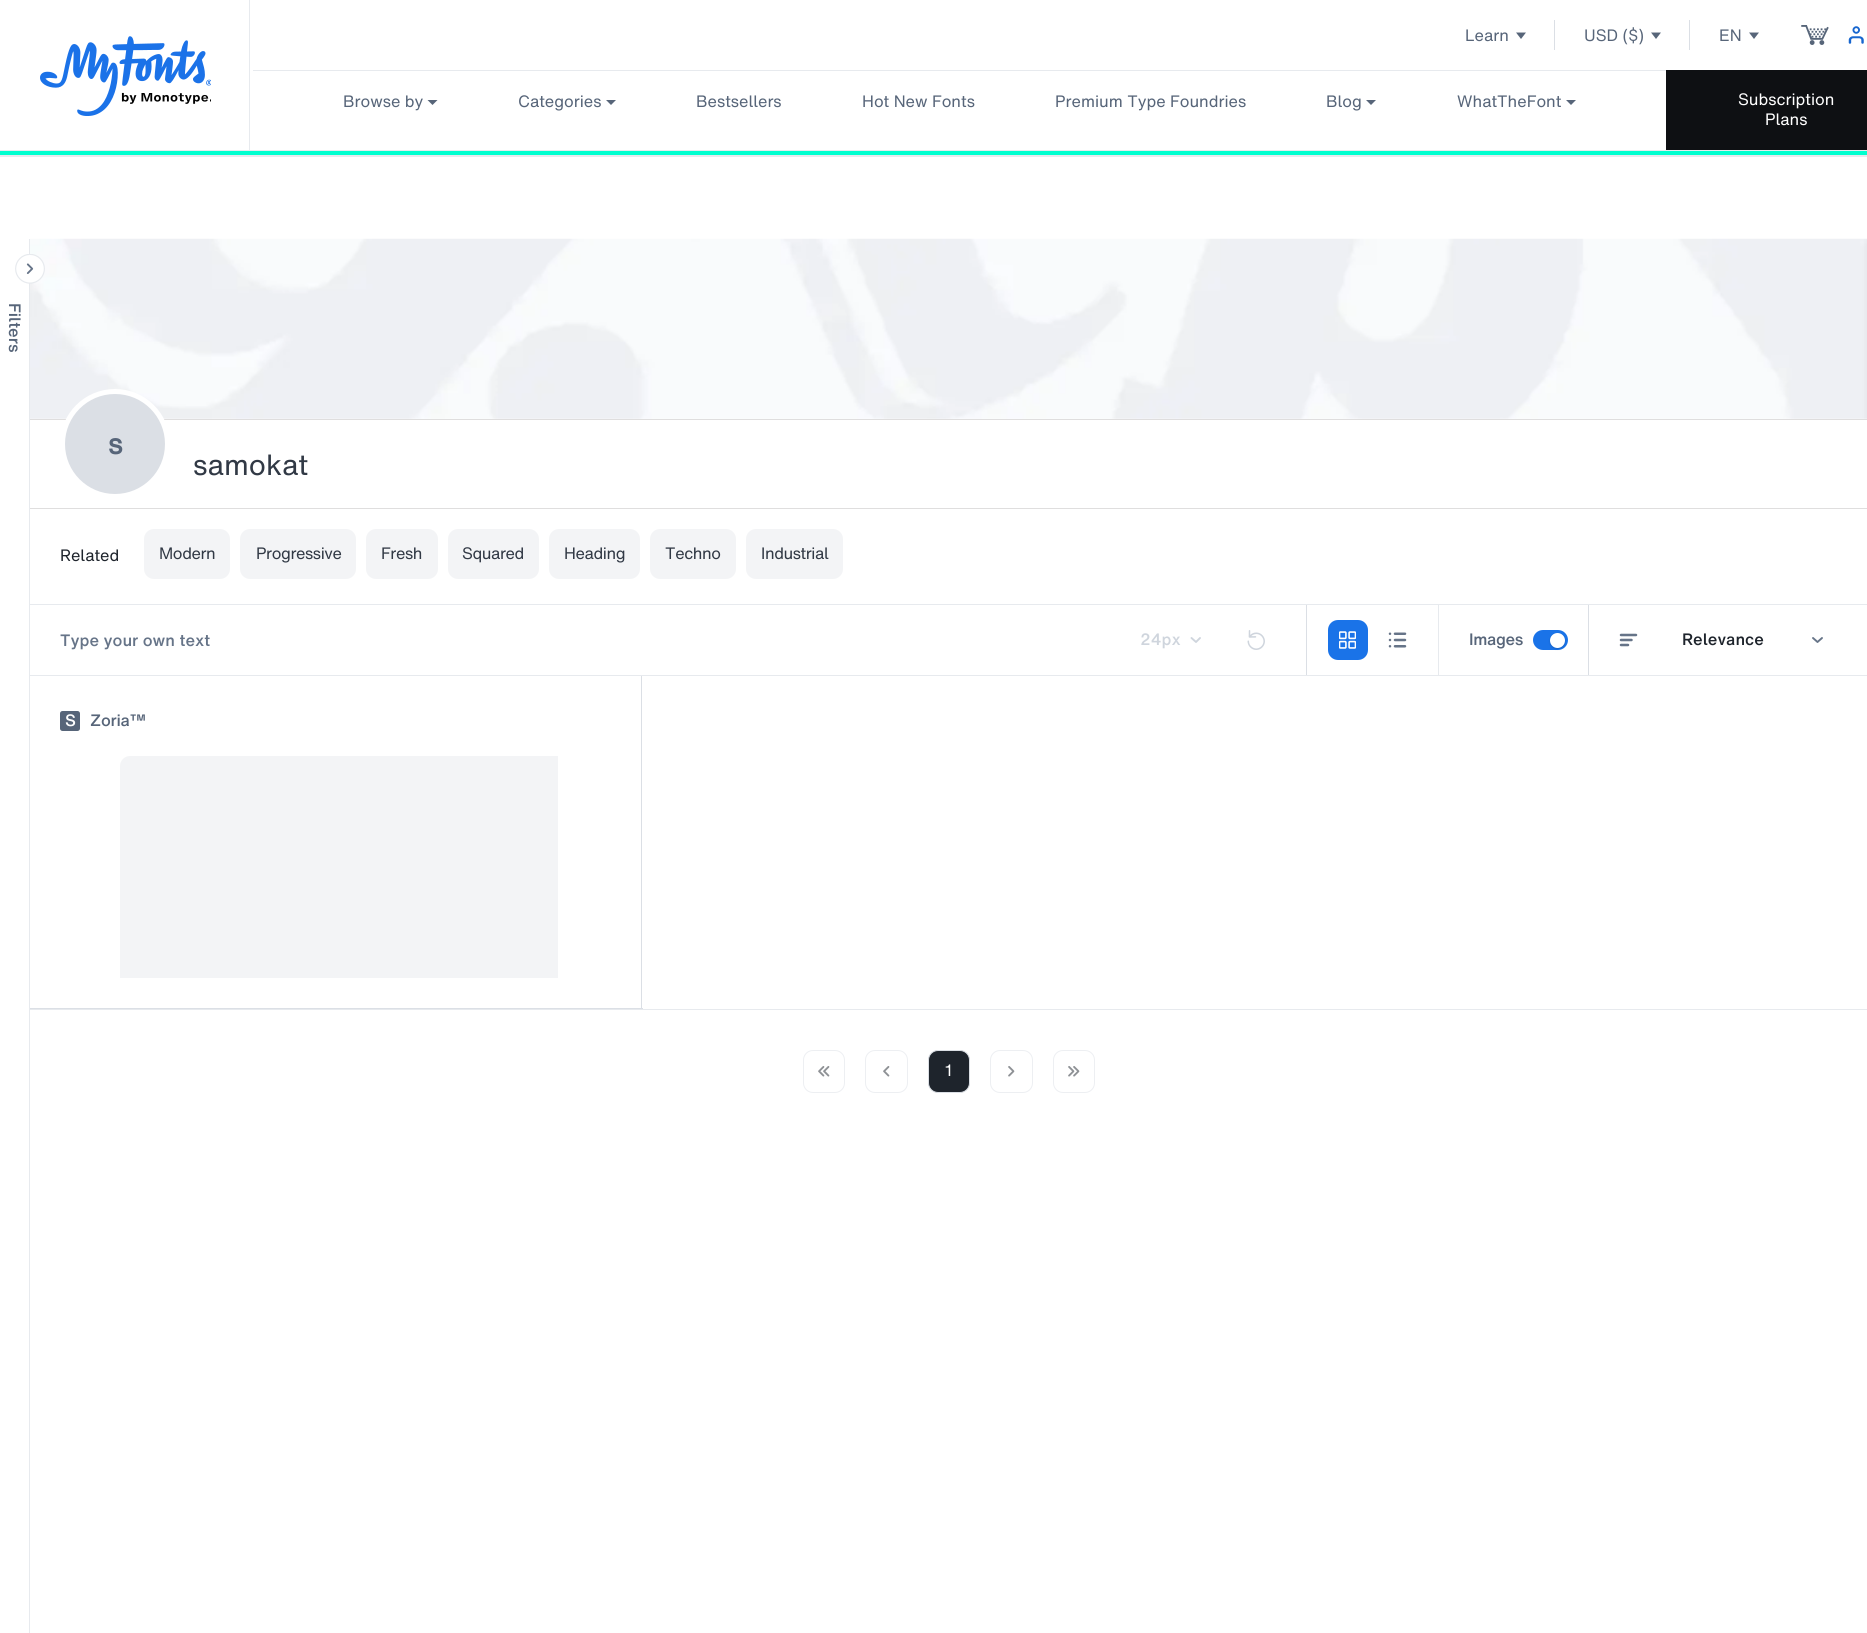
import math
import cairo

surface = cairo.ImageSurface(cairo.FORMAT_RGB24, 1867, 1633)
cr = cairo.Context(surface)
options = cairo.FontOptions()
options.set_hint_metrics(cairo.HINT_METRICS_OFF)
options.set_hint_style(cairo.HINT_STYLE_NONE)
cr.set_font_options(options)
cr.set_miter_limit(4)


def rgb(code):
    cr.set_source_rgb(*(v / 255 for v in bytes.fromhex(code[-6:])))


def tracked(x, y, s, letter, word):
    cr.move_to(x, y)
    for ch in s:
        cr.show_text(ch)
        cr.rel_move_to(letter + word * (ch == ' '), 0)


def rrect(x, y, w, h, r):
    cr.new_sub_path()
    for i, (u, v) in enumerate([(x + w - r, y + h - r), (x + r, y + h - r), (x + r, y + r), (x + w - r, y + r)]):
        cr.arc(u, v, r, i * math.pi / 2, (i + 1) * math.pi / 2)
    cr.close_path()


def soft_shadow(x, y, w, h, r, blur, alpha):
    cr.push_group_with_content(cairo.CONTENT_ALPHA)
    cr.set_operator(cairo.OPERATOR_SOURCE)
    for i in range(15, -16, -2):
        e = blur * i / 6
        if min(w, h) + 2 * e > 0:
            cr.set_source_rgba(0, 0, 0, alpha * math.erfc((i - 1) / 8.5) / 2)
            rrect(x - e, y - e, w + 2 * e, h + 2 * e, max(0, min(r + e + blur * .6, min(w, h) / 2 + e)))
            cr.fill()
    cr.mask(cr.pop_group())


def image(path, x, y, w, h):
    cr.save()
    cr.set_source_surface(cairo.ImageSurface.create_from_png(path), x, y)
    cr.rectangle(x, y, w, h)
    cr.fill()
    cr.restore()


rgb("#ffffff")
cr.paint()
for x, y, w, h, color in [
    (0, 155, 1867, 2, "#e7eaee"),
    (0, 150, 1867, 1, "#e7eaee"),
    (249, 0, 1, 150, "#e7eaee"),
]:
    rgb(color)
    cr.rectangle(x, y, w, h)
    cr.fill()
image("img/1.png", 40, 36, 171, 80)
rgb("#576579")
cr.new_path()
cr.move_to(1516, 32.5)
cr.line_to(1526, 32.5)
cr.line_to(1521, 39)
cr.close_path()
cr.fill()
rgb("#dbdfe5")
cr.rectangle(1554, 20, 1, 30)
cr.fill()
rgb("#576579")
cr.new_path()
cr.move_to(1651, 32.5)
cr.line_to(1661, 32.5)
cr.line_to(1656, 39)
cr.close_path()
cr.fill()
rgb("#dbdfe5")
cr.rectangle(1689, 20, 1, 30)
cr.fill()
rgb("#576579")
cr.new_path()
cr.move_to(1749, 32.5)
cr.line_to(1759, 32.5)
cr.line_to(1754, 39)
cr.close_path()
cr.fill()
image("img/2.png", 1801, 25, 28, 20)
image("img/3.png", 1848, 26, 16, 18)
rgb("#e7eaee")
cr.rectangle(253, 70, 1413, 1)
cr.fill()
rgb("#576579")
cr.new_path()
cr.move_to(427.5, 100)
cr.line_to(437.5, 100)
cr.line_to(432.5, 105)
cr.close_path()
cr.fill()
cr.new_path()
cr.move_to(606, 100)
cr.line_to(616, 100)
cr.line_to(611, 105)
cr.close_path()
cr.fill()
cr.new_path()
cr.move_to(1366, 100)
cr.line_to(1376, 100)
cr.line_to(1371, 105)
cr.close_path()
cr.fill()
cr.new_path()
cr.move_to(1566, 100)
cr.line_to(1576, 100)
cr.line_to(1571, 105)
cr.close_path()
cr.fill()
for x, y, w, h, color in [
    (1666, 70, 201, 80, "#0e1013"),
    (0, 151, 1867, 4, "#00ffcf"),
    (29, 239, 1, 1394, "#e7eaee"),
]:
    rgb(color)
    cr.rectangle(x, y, w, h)
    cr.fill()
image("img/5.png", 30, 238, 1837, 181)
image("img/4.png", 15, 254, 30, 30)
rgb("#dfdede")
cr.rectangle(30, 419, 1837, 1)
cr.fill()
cr.rectangle(30, 508, 1837, 1)
cr.fill()
rgb("#dbdfe5")
cr.arc(115, 444, 52.5, 0, 2 * math.pi)
cr.fill_preserve()
rgb("#ffffff")
cr.set_line_width(5)
cr.stroke()
rgb("#e7eaee")
cr.rectangle(30, 604, 1837, 1)
cr.fill()
rgb("#f3f4f6")
rrect(144, 529, 86, 50, 10)
cr.fill()
rrect(240, 529, 116, 50, 10)
cr.fill()
rrect(366, 529, 72, 50, 10)
cr.fill()
rrect(448, 529, 91, 50, 10)
cr.fill()
rrect(549, 529, 91, 50, 10)
cr.fill()
rrect(650, 529, 86, 50, 10)
cr.fill()
rrect(746, 529, 97, 50, 10)
cr.fill()
rgb("#e7eaee")
cr.rectangle(30, 675, 1837, 1)
cr.fill()
cr.new_path()
cr.move_to(1191.5, 638)
cr.line_to(1196, 642)
cr.line_to(1200, 638)
rgb("#cfd5dd")
cr.set_line_width(1.9)
cr.set_line_cap(cairo.LINE_CAP_ROUND)
cr.set_line_join(cairo.LINE_JOIN_ROUND)
cr.stroke()
image("img/6.png", 1247, 630, 18, 20)
rgb("#dbdfe5")
cr.rectangle(1306, 605, 1, 70)
cr.fill()
rgb("#1a73e8")
rrect(1328, 620, 40, 40, 10)
cr.fill()
image("img/7.png", 1339, 631, 17, 18)
image("img/8.png", 1388, 632, 19, 16)
rgb("#e7eaee")
cr.rectangle(1438, 605, 1, 70)
cr.fill()
rgb("#1a73e8")
rrect(1533, 630, 35, 20, 10)
cr.fill()
rgb("#000000")
soft_shadow(1550, 634, 15, 15, 7.5, 1, 0.16)
rgb("#ffffff")
cr.arc(1557.5, 640.5, 7.5, 0, 2 * math.pi)
cr.fill()
rgb("#dbdfe5")
cr.rectangle(1588, 605, 1, 70)
cr.fill()
cr.new_path()
cr.move_to(1621, 635)
cr.line_to(1636, 635)
cr.move_to(1621, 640)
cr.line_to(1631.5, 640)
cr.move_to(1621, 645)
cr.line_to(1628, 645)
rgb("#667488")
cr.set_line_width(2.5)
cr.stroke()
cr.new_path()
cr.move_to(1813, 638)
cr.line_to(1817.5, 642)
cr.line_to(1822, 638)
cr.set_line_width(1.9)
cr.stroke()
rgb("#dbdfe5")
cr.rectangle(641, 676, 1, 333)
cr.fill()
cr.rectangle(30, 1008, 613, 1)
cr.fill()
rgb("#576579")
rrect(60, 711, 20, 20, 2.5)
cr.fill()
rgb("#f3f4f6")
cr.new_path()
cr.move_to(130, 756)
cr.line_to(558, 756)
cr.line_to(558, 978)
cr.line_to(120, 978)
cr.line_to(120, 766)
cr.curve_to(120, 760.5, 124.5, 756, 130, 756)
cr.close_path()
cr.fill()
rgb("#e7eaee")
cr.rectangle(30, 1009, 1837, 1)
cr.fill()
rrect(803.5, 1050.5, 41, 42, 9.5)
rgb("#edeff2")
cr.set_line_width(1)
cr.set_line_cap(cairo.LINE_CAP_BUTT)
cr.set_line_join(cairo.LINE_JOIN_MITER)
cr.stroke()
image("img/9.png", 818, 1066, 7, 11)
image("img/10.png", 823, 1066, 7, 11)
rrect(865.5, 1050.5, 42, 42, 9.5)
cr.stroke()
image("img/9.png", 883, 1066, 7, 11)
rgb("#1e242c")
rrect(928.5, 1050.5, 41, 42, 9.5)
cr.fill_preserve()
rgb("#dbdfe5")
cr.stroke()
rrect(990.5, 1050.5, 42, 42, 9.5)
rgb("#edeff2")
cr.stroke()
image("img/11.png", 1008, 1066, 7, 11)
rrect(1053.5, 1050.5, 41, 42, 9.5)
cr.stroke()
image("img/11.png", 1068, 1066, 7, 11)
image("img/12.png", 1073, 1066, 7, 11)
cr.select_font_face("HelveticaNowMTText")
cr.set_font_size(16.25)
rgb("#576579")
for x, y, s in [
    (1465, 41, "Learn"),
    (1584, 41, "USD ($)"),
    (1719, 41, "EN"),
]:
    cr.move_to(x, y)
    cr.show_text(s)
cr.select_font_face("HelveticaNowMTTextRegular")
for x, y, s in [
    (343, 107, "Browse by"),
    (518, 107, "Categories"),
    (696, 107, "Bestsellers"),
    (862, 107, "Hot New Fonts"),
    (1055, 107, "Premium Type Foundries"),
    (1326, 107, "Blog"),
    (1457, 107, "WhatTheFont"),
]:
    cr.move_to(x, y)
    cr.show_text(s)
rgb("#ffffff")
cr.move_to(1738, 105)
cr.show_text("Subscription")
cr.move_to(1765, 125)
cr.show_text("Plans")
cr.select_font_face("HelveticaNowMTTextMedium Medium")
rgb("#576579")
cr.save()
cr.translate(9, 303)
cr.rotate(90 * math.pi / 180)
cr.move_to(0, 0)
cr.show_text("Filters")
cr.restore()
cr.select_font_face("HelveticaNowMTText", cairo.FONT_SLANT_NORMAL, cairo.FONT_WEIGHT_BOLD)
cr.set_font_size(28.75)
cr.move_to(108, 454)
cr.show_text("s")
cr.select_font_face("HelveticaNowMTText")
rgb("#313945")
cr.move_to(193, 475)
cr.show_text("samokat")
cr.set_font_size(16.25)
rgb("#1e242c")
cr.move_to(60, 561)
cr.show_text("Related")
rgb("#313945")
for x, y, s in [
    (159, 559, "Modern"),
    (256, 559, "Progressive"),
    (381, 559, "Fresh"),
    (462, 559, "Squared"),
    (564, 559, "Heading"),
    (665, 559, "Techno"),
    (761, 559, "Industrial"),
]:
    tracked(x, y, s, -0.4, 0)
cr.select_font_face("HelveticaNowMTTextMedium Medium")
rgb("#667488")
cr.move_to(60, 646)
cr.show_text("Type your own text")
rgb("#cfd5dd")
cr.move_to(1140, 645)
cr.show_text("24px")
rgb("#576579")
tracked(1469, 645, "Images", -0.4, 0)
rgb("#1e242c")
cr.move_to(1682, 645)
cr.show_text("Relevance")
rgb("#ffffff")
cr.move_to(65, 726)
cr.show_text("S")
rgb("#576579")
tracked(90, 726, "Zoria™", -0.25, 0)
cr.select_font_face("HelveticaNowMTText")
rgb("#ffffff")
cr.move_to(945, 1076)
cr.show_text("1")
surface.write_to_png("page.png")
